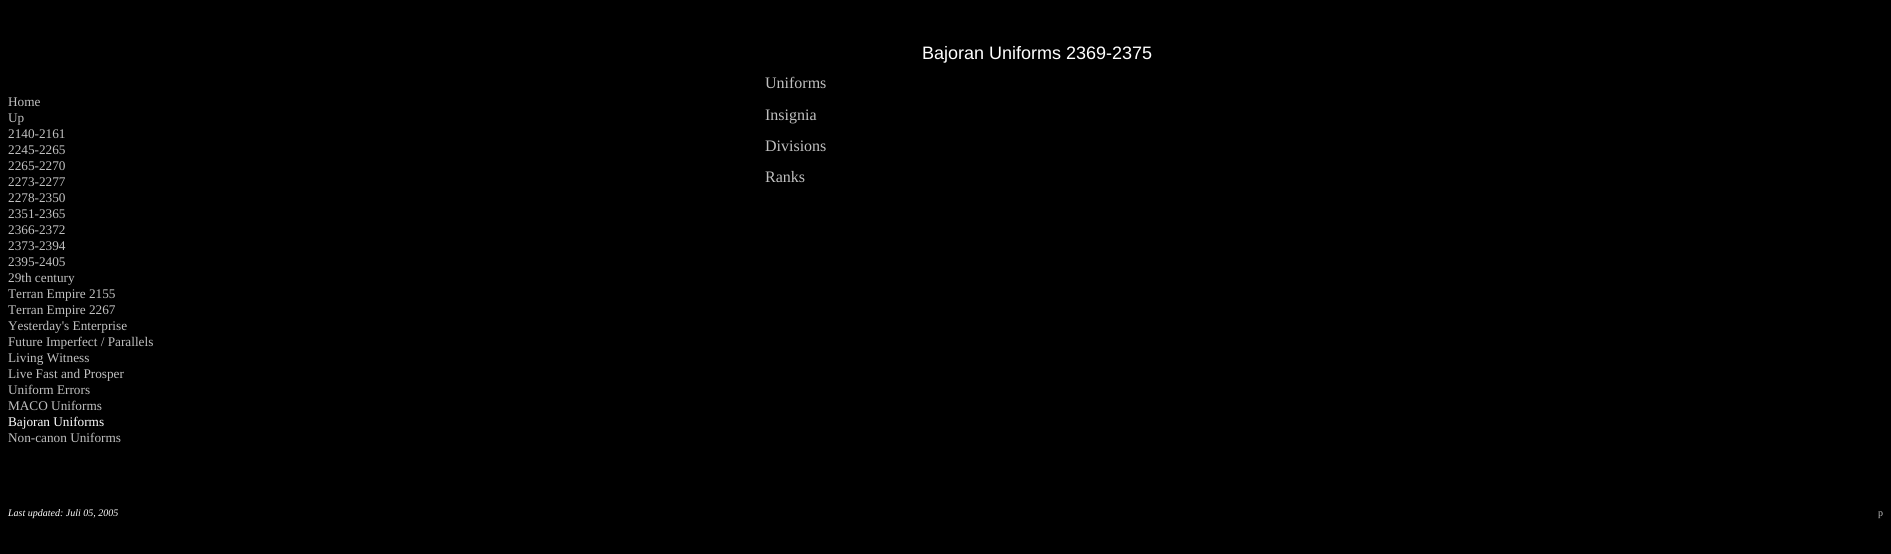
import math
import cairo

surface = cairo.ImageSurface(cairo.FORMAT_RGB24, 1891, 554)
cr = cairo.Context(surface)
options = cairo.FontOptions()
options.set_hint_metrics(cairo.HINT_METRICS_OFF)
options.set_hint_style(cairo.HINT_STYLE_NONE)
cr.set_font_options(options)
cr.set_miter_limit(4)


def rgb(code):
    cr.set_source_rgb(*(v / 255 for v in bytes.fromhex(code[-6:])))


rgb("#000000")
cr.paint()
cr.select_font_face("Liberation Serif")
cr.set_font_size(13.25)
rgb("#c0c0c0")
for x, y, s in [
    (8, 106, "Home"),
    (8, 122, "Up"),
    (8, 138, "2140-2161"),
    (8, 154, "2245-2265"),
    (8, 170, "2265-2270"),
    (8, 186, "2273-2277"),
    (8, 202, "2278-2350"),
    (8, 218, "2351-2365"),
    (8, 234, "2366-2372"),
    (8, 250, "2373-2394"),
    (8, 266, "2395-2405"),
    (8, 282, "29th century"),
    (8, 298, "Terran Empire 2155"),
    (8, 314, "Terran Empire 2267"),
    (8, 330, "Yesterday's Enterprise"),
    (8, 346, "Future Imperfect / Parallels"),
    (8, 362, "Living Witness"),
    (8, 378, "Live Fast and Prosper"),
    (8, 394, "Uniform Errors"),
    (8, 410, "MACO Uniforms"),
]:
    cr.move_to(x, y)
    cr.show_text(s)
rgb("#ffffff")
cr.move_to(8, 426)
cr.show_text("Bajoran Uniforms")
rgb("#c0c0c0")
cr.move_to(8, 442)
cr.show_text("Non-canon Uniforms")
cr.select_font_face("Liberation Sans")
cr.set_font_size(18)
rgb("#ffffff")
cr.move_to(922, 59)
cr.show_text("Bajoran Uniforms 2369-2375")
cr.select_font_face("Liberation Serif")
cr.set_font_size(16)
rgb("#c0c0c0")
for x, y, s in [
    (765, 88, "Uniforms"),
    (765, 120, "Insignia"),
    (765, 151, "Divisions"),
    (765, 182, "Ranks"),
]:
    cr.move_to(x, y)
    cr.show_text(s)
cr.select_font_face("Liberation Serif", cairo.FONT_SLANT_ITALIC)
cr.set_font_size(10)
rgb("#ffffff")
cr.move_to(8, 516)
cr.show_text("Last updated: Juli 05, 2005")
cr.select_font_face("Liberation Serif")
rgb("#c0c0c0")
cr.move_to(1878, 516)
cr.show_text("p")
surface.write_to_png("page.png")
